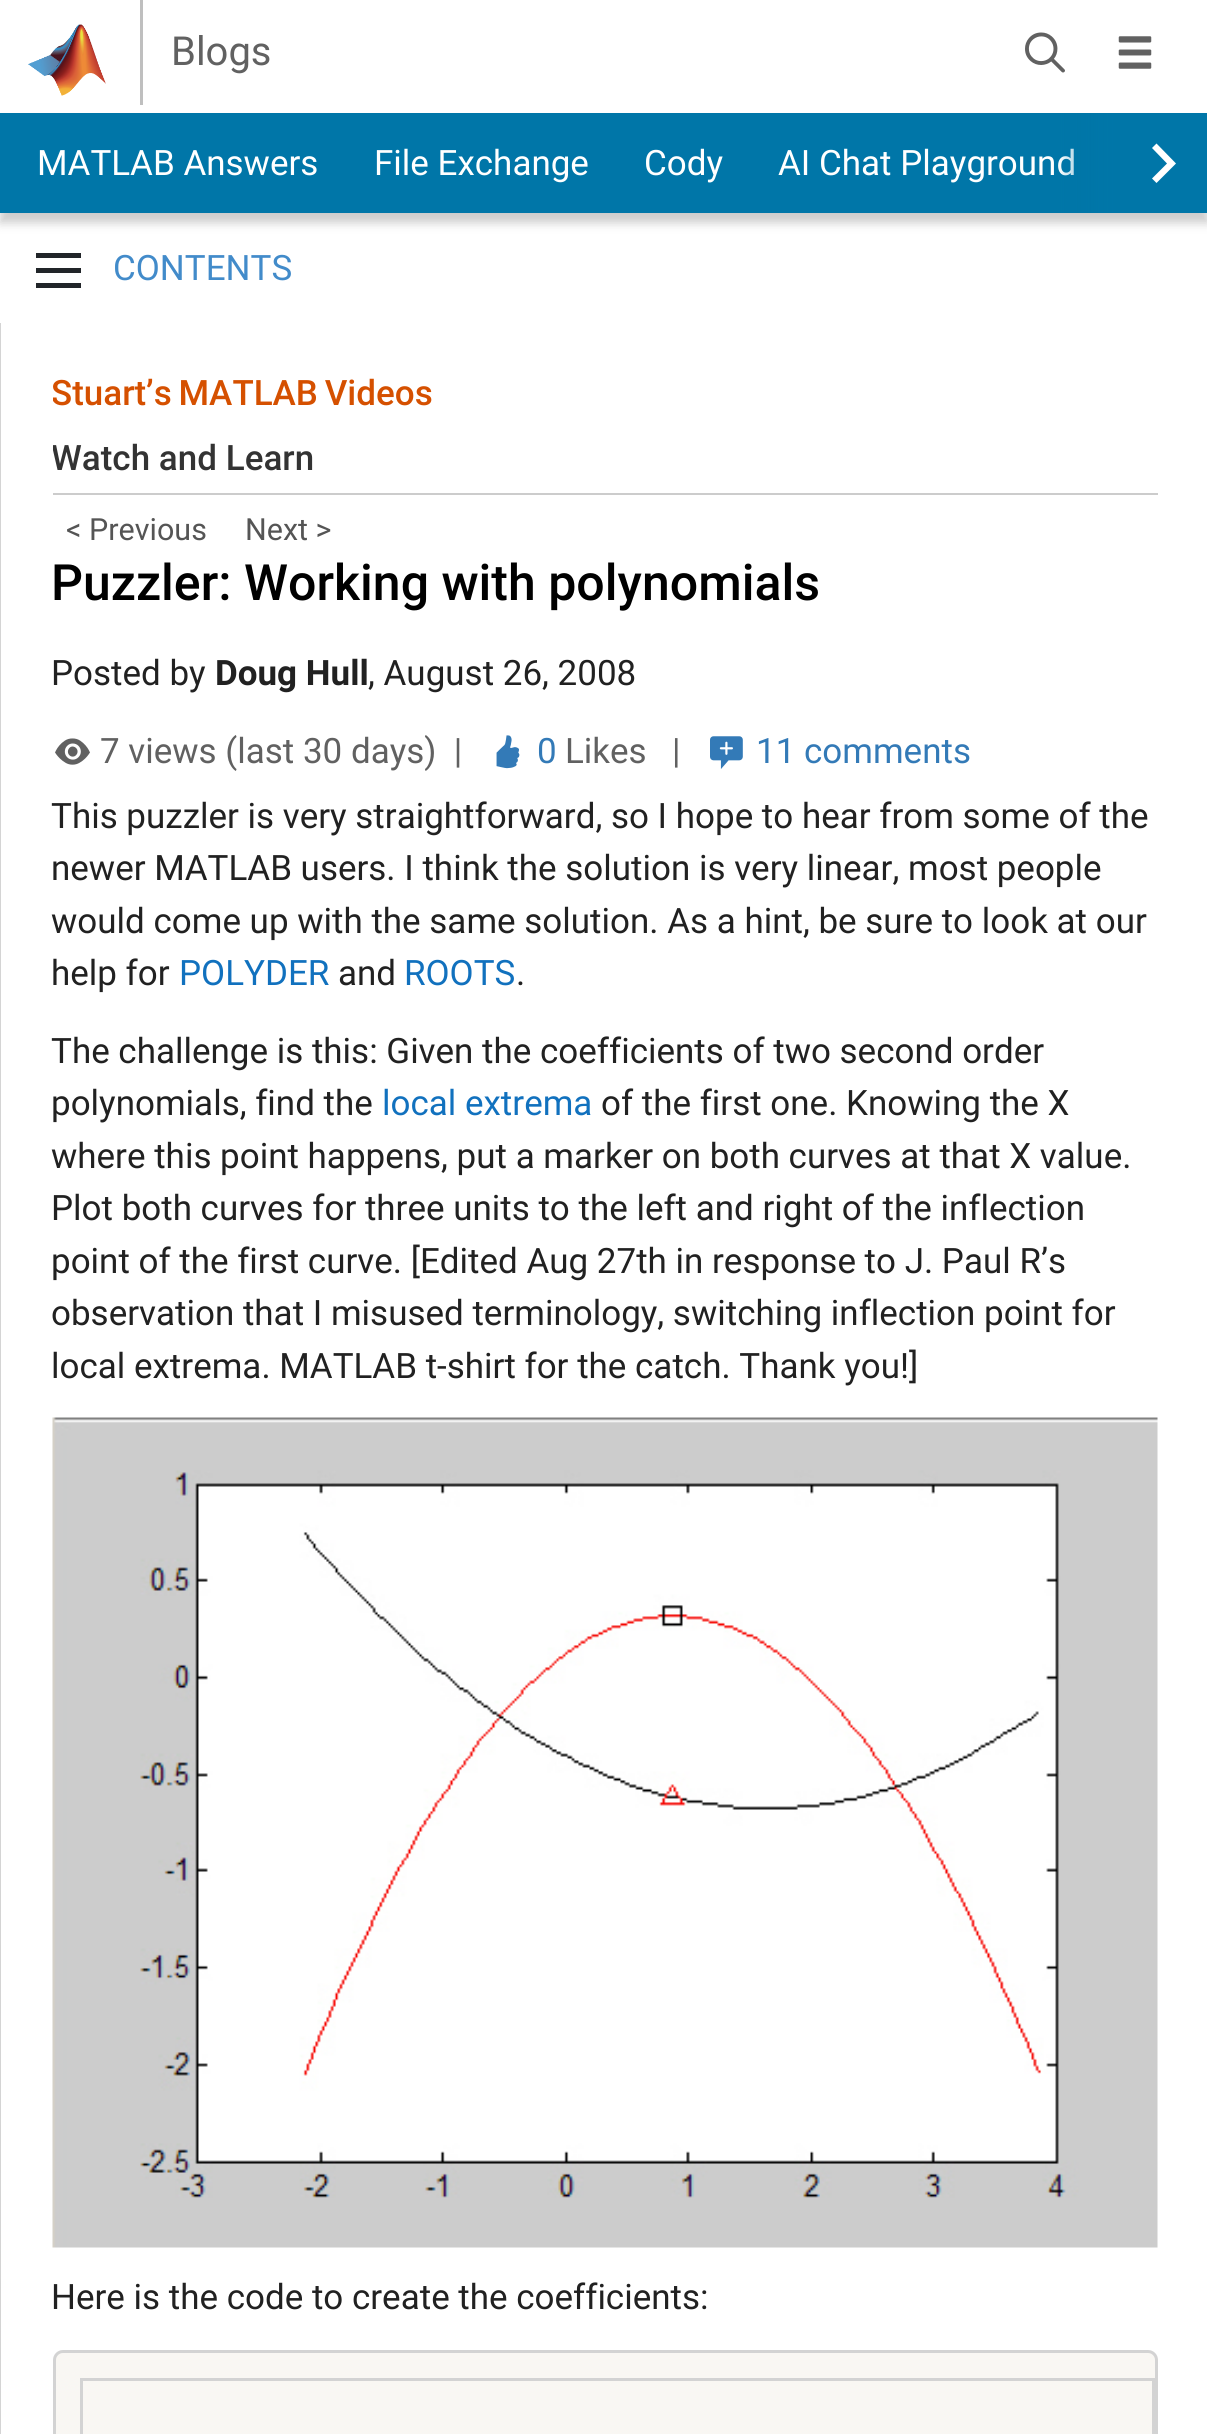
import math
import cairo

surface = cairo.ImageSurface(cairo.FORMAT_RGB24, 1207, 2434)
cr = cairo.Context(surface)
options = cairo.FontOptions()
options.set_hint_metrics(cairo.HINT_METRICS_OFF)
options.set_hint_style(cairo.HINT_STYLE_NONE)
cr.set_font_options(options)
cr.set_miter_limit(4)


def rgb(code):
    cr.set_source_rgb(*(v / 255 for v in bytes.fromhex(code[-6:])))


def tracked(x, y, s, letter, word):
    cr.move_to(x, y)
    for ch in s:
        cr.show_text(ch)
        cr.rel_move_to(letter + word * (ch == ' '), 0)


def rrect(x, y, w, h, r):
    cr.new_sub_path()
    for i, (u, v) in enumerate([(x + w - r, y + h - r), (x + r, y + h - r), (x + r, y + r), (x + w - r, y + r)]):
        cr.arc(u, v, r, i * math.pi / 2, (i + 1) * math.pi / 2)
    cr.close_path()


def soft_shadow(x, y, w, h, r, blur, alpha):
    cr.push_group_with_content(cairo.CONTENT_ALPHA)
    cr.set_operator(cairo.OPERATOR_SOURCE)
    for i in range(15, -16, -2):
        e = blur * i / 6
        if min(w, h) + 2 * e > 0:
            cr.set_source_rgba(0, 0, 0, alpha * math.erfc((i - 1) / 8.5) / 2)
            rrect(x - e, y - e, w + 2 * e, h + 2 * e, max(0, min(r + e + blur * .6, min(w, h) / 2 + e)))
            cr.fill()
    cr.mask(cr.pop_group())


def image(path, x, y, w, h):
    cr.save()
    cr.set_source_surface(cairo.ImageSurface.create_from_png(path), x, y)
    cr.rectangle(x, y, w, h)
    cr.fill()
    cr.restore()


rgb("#ffffff")
cr.paint()
rgb("#bfbfbf")
cr.rectangle(140, 0, 3, 105)
cr.fill()
image("img/1.png", 28, 24, 78, 72)
image("img/2.png", 1025, 32, 40, 41)
image("img/3.png", 1118, 36, 34, 33)
rgb("#000000")
soft_shadow(0, 123, 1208, 100, 0, 5, 0.2)
rgb("#0076a8")
cr.rectangle(0, 113, 1120, 100)
cr.fill()
cr.rectangle(1178, 113, 29, 100)
cr.fill()
rgb("#212529")
cr.new_path()
cr.move_to(81, 288)
cr.line_to(36, 288)
cr.line_to(36, 283)
cr.line_to(81, 283)
cr.close_path()
cr.move_to(81, 273)
cr.line_to(36, 273)
cr.line_to(36, 268)
cr.line_to(81, 268)
cr.close_path()
cr.move_to(81, 258)
cr.line_to(36, 258)
cr.line_to(36, 253)
cr.line_to(81, 253)
cr.close_path()
cr.fill()
rgb("#d4d4d4")
cr.rectangle(0, 323, 1, 2111)
cr.fill()
rgb("#cccccc")
cr.rectangle(53, 493, 1105, 2)
cr.fill()
image("img/4.png", 55, 738, 35, 27)
image("img/5.png", 496, 735, 24, 34)
image("img/6.png", 710, 736, 33, 33)
image("img/7.png", 52, 1417, 1106, 831)
rgb("#f9f7f3")
rrect(54.5, 2351.5, 1102, 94, 8.5)
cr.fill_preserve()
rgb("#d3d3d3")
cr.set_line_width(3)
cr.stroke()
cr.rectangle(81.5, 2379.5, 1072, 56)
cr.stroke()
cr.select_font_face("Roboto")
cr.set_font_size(40)
rgb("#616161")
cr.move_to(171, 65)
cr.show_text("Blogs")
cr.set_font_size(35)
rgb("#ffffff")
for x, y, s in [
    (37, 175, "MATLAB Answers"),
    (374, 175, "File Exchange"),
    (644, 175, "Cody"),
    (778, 175, "AI Chat Playground"),
]:
    cr.move_to(x, y)
    cr.show_text(s)
gradient = cairo.LinearGradient(1058, 163, 1183, 163)
gradient.add_color_stop_rgba(0, 0, 0.463, 0.659, 0)
gradient.add_color_stop_rgba(0.5, 0, 0.463, 0.659, 1)
gradient.add_color_stop_rgba(1, 0, 0.463, 0.659, 1)
cr.set_source(gradient)
cr.rectangle(1059, 113, 119, 100)
cr.fill()
rgb("#ffffff")
cr.new_path()
cr.move_to(1156.5, 143.5)
cr.line_to(1152, 148)
cr.line_to(1167, 163.5)
cr.line_to(1152, 178.5)
cr.line_to(1156.5, 183)
cr.line_to(1176, 163.5)
cr.close_path()
cr.fill()
rgb("#428bca")
cr.move_to(113, 280)
cr.show_text("CONTENTS")
cr.save()
cr.rectangle(53, 373, 1105, 122)
cr.clip()
cr.select_font_face("Roboto Medium")
rgb("#d55000")
tracked(51, 405, "Stuart’s MATLAB Videos", 0, -2)
rgb("#333333")
cr.move_to(51, 470)
cr.show_text("Watch and Learn")
cr.restore()
cr.set_font_size(30.5)
rgb("#555555")
cr.move_to(66, 540)
cr.show_text("< Previous")
cr.move_to(245, 540)
cr.show_text("Next >")
cr.select_font_face("Roboto Medium")
cr.set_font_size(50)
rgb("#000000")
cr.move_to(51, 600)
cr.show_text("Puzzler: Working with polynomials")
cr.select_font_face("Roboto")
cr.set_font_size(35)
rgb("#212121")
cr.move_to(51, 685)
cr.show_text("Posted by")
cr.select_font_face("Roboto", cairo.FONT_SLANT_NORMAL, cairo.FONT_WEIGHT_BOLD)
cr.move_to(215, 685)
cr.show_text("Doug Hull")
cr.select_font_face("Roboto")
cr.move_to(368, 685)
cr.show_text(", August 26, 2008")
rgb("#616161")
cr.move_to(100, 763)
cr.show_text("7 views (last 30 days)  |")
rgb("#337ab7")
cr.move_to(537, 763)
cr.show_text("0")
rgb("#616161")
cr.move_to(565, 763)
cr.show_text("Likes")
cr.move_to(672, 763)
cr.show_text("|")
rgb("#337ab7")
cr.move_to(756, 763)
cr.show_text("11 comments")
rgb("#212121")
for x, y, s in [
    (51, 828, "This puzzler is very straightforward, so I hope to hear from some of the"),
    (51, 880, "newer MATLAB users. I think the solution is very linear, most people"),
    (51, 933, "would come up with the same solution. As a hint, be sure to look at our"),
    (51, 985, "help for"),
]:
    cr.move_to(x, y)
    cr.show_text(s)
rgb("#1171be")
cr.move_to(179, 985)
cr.show_text("POLYDER")
rgb("#212121")
cr.move_to(338, 985)
cr.show_text("and")
rgb("#1171be")
cr.move_to(404, 985)
cr.show_text("ROOTS")
rgb("#212121")
for x, y, s in [
    (516, 985, "."),
    (51, 1063, "The challenge is this: Given the coefficients of two second order"),
    (51, 1115, "polynomials, find the"),
]:
    cr.move_to(x, y)
    cr.show_text(s)
rgb("#1171be")
cr.move_to(382, 1115)
cr.show_text("local extrema")
rgb("#212121")
for x, y, s in [
    (601, 1115, "of the first one. Knowing the X"),
    (51, 1168, "where this point happens, put a marker on both curves at that X value."),
    (51, 1220, "Plot both curves for three units to the left and right of the inflection"),
    (51, 1273, "point of the first curve. [Edited Aug 27th in response to J. Paul R’s"),
    (51, 1325, "observation that I misused terminology, switching inflection point for"),
    (51, 1378, "local extrema. MATLAB t-shirt for the catch. Thank you!]"),
    (51, 2309, "Here is the code to create the coefficients:"),
]:
    cr.move_to(x, y)
    cr.show_text(s)
surface.write_to_png("page.png")
